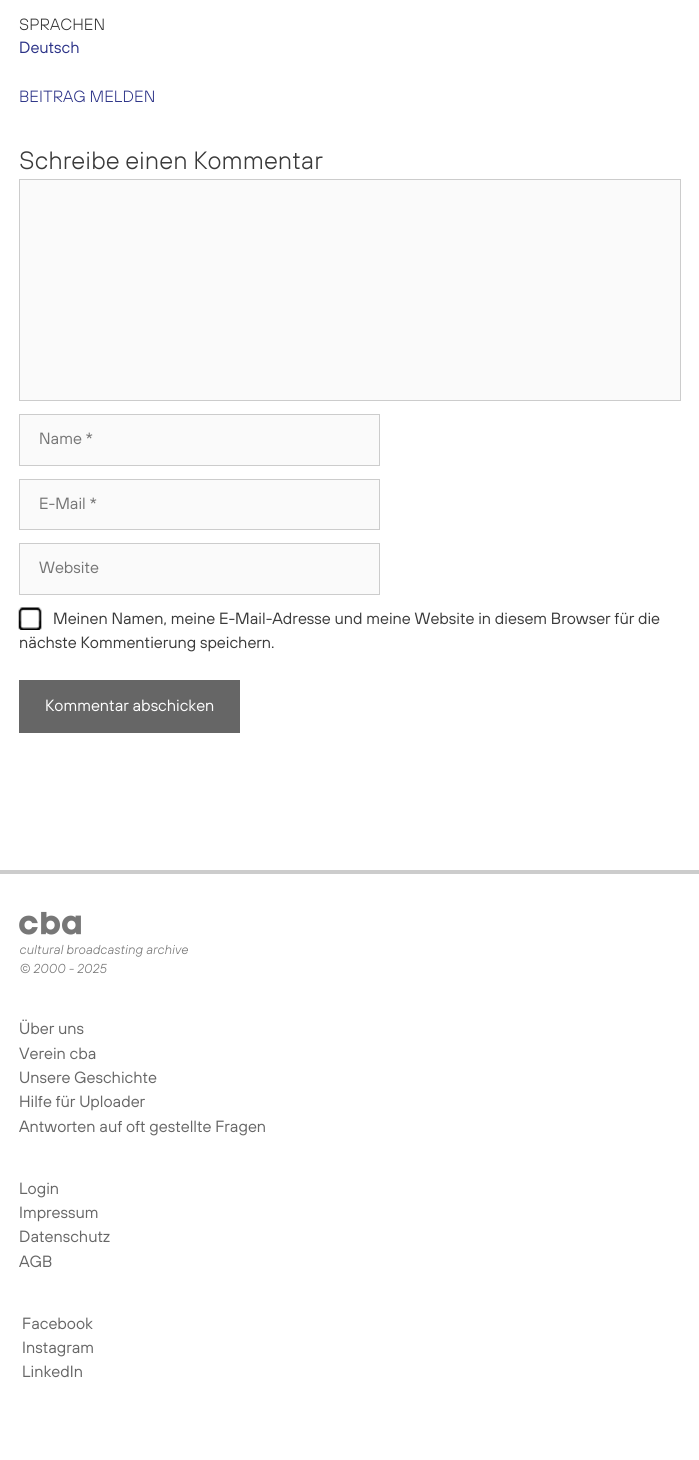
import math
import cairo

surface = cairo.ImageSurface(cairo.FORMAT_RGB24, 699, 1460)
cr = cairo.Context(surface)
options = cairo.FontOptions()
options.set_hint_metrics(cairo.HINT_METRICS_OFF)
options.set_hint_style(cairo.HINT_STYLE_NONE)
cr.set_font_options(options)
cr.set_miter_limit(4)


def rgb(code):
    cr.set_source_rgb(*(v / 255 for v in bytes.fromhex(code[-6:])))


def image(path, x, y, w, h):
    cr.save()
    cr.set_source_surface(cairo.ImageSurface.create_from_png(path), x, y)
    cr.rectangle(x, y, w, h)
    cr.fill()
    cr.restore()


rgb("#ffffff")
cr.paint()
rgb("#fafafa")
cr.rectangle(19.5, 179.5, 661, 221)
cr.fill_preserve()
rgb("#cccccc")
cr.set_line_width(1)
cr.stroke()
rgb("#fafafa")
cr.rectangle(19.5, 414.5, 360, 51)
cr.fill_preserve()
rgb("#cccccc")
cr.stroke()
rgb("#fafafa")
cr.rectangle(19.5, 479.5, 360, 50)
cr.fill_preserve()
rgb("#cccccc")
cr.stroke()
rgb("#fafafa")
cr.rectangle(19.5, 543.5, 360, 51)
cr.fill_preserve()
rgb("#cccccc")
cr.stroke()
image("img/1.png", 18, 607, 24, 23)
rgb("#666666")
cr.rectangle(19, 680, 221, 53)
cr.fill()
rgb("#cccccc")
cr.rectangle(0, 870, 699, 4)
cr.fill()
image("img/2.png", 19, 911, 62, 24)
cr.select_font_face("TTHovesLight")
cr.set_font_size(16.25)
rgb("#333333")
cr.move_to(19, 30)
cr.show_text("SPRACHEN")
cr.select_font_face("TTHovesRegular")
rgb("#2b3287")
cr.move_to(19, 53)
cr.show_text("Deutsch")
cr.select_font_face("TTHovesLight")
cr.move_to(19, 102)
cr.show_text("BEITRAG MELDEN")
cr.set_font_size(25)
rgb("#3a3a3a")
cr.move_to(19, 169)
cr.show_text("Schreibe einen Kommentar")
cr.select_font_face("TTHovesRegular")
cr.set_font_size(16.25)
rgb("#757575")
for x, y, s in [
    (39, 444, "Name *"),
    (39, 509, "E-Mail *"),
    (39, 573, "Website"),
]:
    cr.move_to(x, y)
    cr.show_text(s)
rgb("#3a3a3a")
cr.move_to(53, 624)
cr.show_text("Meinen Namen, meine E-Mail-Adresse und meine Website in diesem Browser für die")
cr.move_to(19, 648)
cr.show_text("nächste Kommentierung speichern.")
rgb("#ffffff")
cr.move_to(45, 711)
cr.show_text("Kommentar abschicken")
cr.select_font_face("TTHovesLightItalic")
cr.set_font_size(13)
rgb("#757575")
cr.move_to(19, 954)
cr.show_text("cultural broadcasting archive")
cr.move_to(19, 973)
cr.show_text("© 2000 - 2025")
cr.select_font_face("TTHovesRegular")
cr.set_font_size(16.25)
rgb("#666666")
for x, y, s in [
    (19, 1034, "Über uns"),
    (19, 1059, "Verein cba"),
    (19, 1083, "Unsere Geschichte"),
    (19, 1107, "Hilfe für Uploader"),
    (19, 1132, "Antworten auf oft gestellte Fragen"),
    (19, 1194, "Login"),
    (19, 1218, "Impressum"),
    (19, 1242, "Datenschutz"),
    (19, 1267, "AGB"),
    (22, 1329, "Facebook"),
    (22, 1353, "Instagram"),
    (22, 1377, "LinkedIn"),
]:
    cr.move_to(x, y)
    cr.show_text(s)
surface.write_to_png("page.png")
